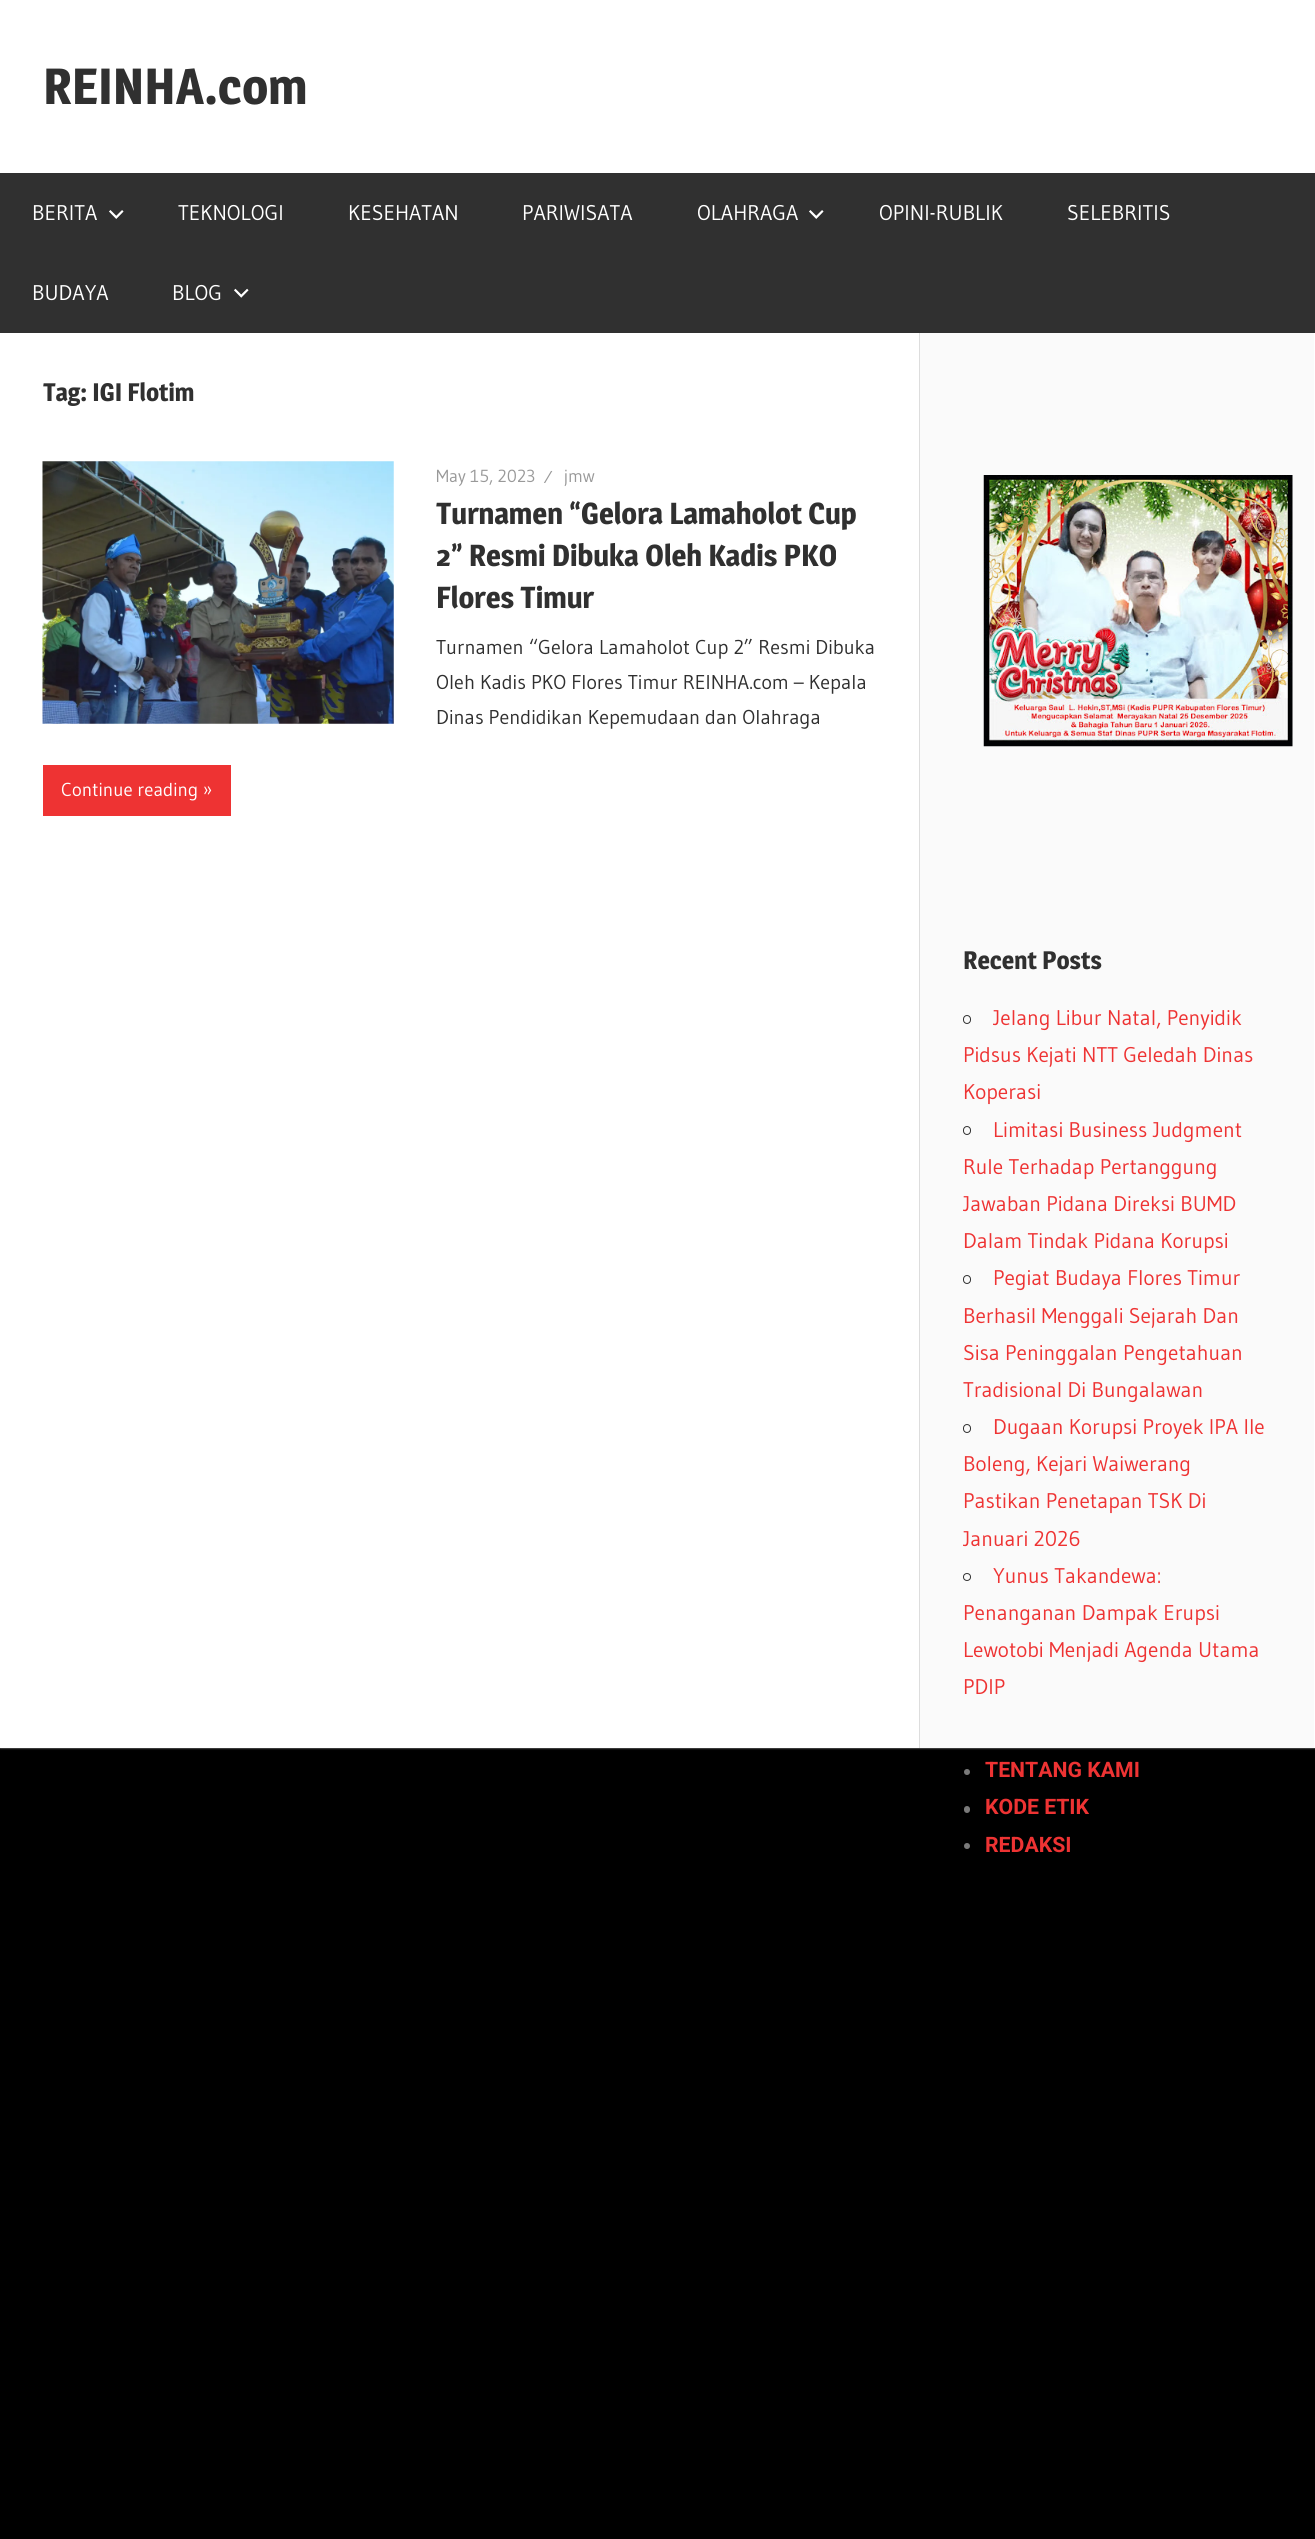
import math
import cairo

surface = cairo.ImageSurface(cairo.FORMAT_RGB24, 1315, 2539)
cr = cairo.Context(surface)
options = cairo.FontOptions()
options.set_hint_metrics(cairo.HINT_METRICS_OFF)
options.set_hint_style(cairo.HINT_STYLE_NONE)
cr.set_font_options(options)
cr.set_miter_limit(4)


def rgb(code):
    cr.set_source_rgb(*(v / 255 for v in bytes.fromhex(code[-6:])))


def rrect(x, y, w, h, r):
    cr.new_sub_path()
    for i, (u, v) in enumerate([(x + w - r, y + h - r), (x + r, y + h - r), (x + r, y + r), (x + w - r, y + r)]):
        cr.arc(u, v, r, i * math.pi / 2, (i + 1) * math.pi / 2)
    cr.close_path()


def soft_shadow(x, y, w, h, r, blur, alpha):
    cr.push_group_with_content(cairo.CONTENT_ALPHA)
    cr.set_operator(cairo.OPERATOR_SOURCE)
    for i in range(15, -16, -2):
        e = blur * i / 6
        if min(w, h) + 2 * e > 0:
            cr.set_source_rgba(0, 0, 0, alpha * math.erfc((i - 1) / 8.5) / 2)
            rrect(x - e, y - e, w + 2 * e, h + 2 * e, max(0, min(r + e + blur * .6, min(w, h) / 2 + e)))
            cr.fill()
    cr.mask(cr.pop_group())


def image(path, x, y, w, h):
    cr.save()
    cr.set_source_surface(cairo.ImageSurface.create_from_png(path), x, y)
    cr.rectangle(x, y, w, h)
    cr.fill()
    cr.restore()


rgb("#000000")
cr.paint()
rgb("#aaaaaa")
soft_shadow(0, 0, 1315, 1748, 0, 1, 1)
rgb("#ffffff")
cr.rectangle(0, 0, 1315, 1748)
cr.fill()
rgb("#303030")
cr.rectangle(0, 173, 1315, 160)
cr.fill()
image("img/1.png", 109, 210, 15, 9)
image("img/1.png", 809, 210, 15, 9)
image("img/2.png", 234, 288, 15, 10)
image("img/3.png", 42, 461, 352, 263)
for x, y, w, h, color in [
    (43, 765, 188, 51, "#ee3333"),
    (920, 333, 394, 1415, "#fafafa"),
    (919, 333, 1, 1415, "#dddddd"),
]:
    rgb(color)
    cr.rectangle(x, y, w, h)
    cr.fill()
image("img/4.png", 983, 475, 310, 272)
rrect(963.5, 1015.5, 7, 8, 3.5)
rgb("#303030")
cr.set_line_width(1)
cr.stroke()
rrect(963.5, 1126.5, 7, 8, 3.5)
cr.stroke()
rrect(963.5, 1275.5, 7, 8, 3.5)
cr.stroke()
rrect(963.5, 1424.5, 7, 8, 3.5)
cr.stroke()
cr.arc(967, 1577, 3.5, 0, 2 * math.pi)
cr.stroke()
rgb("#7a7a7a")
cr.arc(967, 1772, 3, 0, 2 * math.pi)
cr.fill()
rrect(964, 1806, 6, 7, 3)
cr.fill()
cr.arc(967, 1846, 3, 0, 2 * math.pi)
cr.fill()
cr.select_font_face("Magra", cairo.FONT_SLANT_NORMAL, cairo.FONT_WEIGHT_BOLD)
cr.set_font_size(50)
rgb("#303030")
cr.move_to(43, 104)
cr.show_text("REINHA.com")
cr.select_font_face("Gudea")
cr.set_font_size(21.25)
rgb("#ffffff")
for x, y, s in [
    (32, 220, "BERITA"),
    (178, 220, "TEKNOLOGI"),
    (348, 220, "KESEHATAN"),
    (522, 220, "PARIWISATA"),
    (697, 220, "OLAHRAGA"),
    (879, 220, "OPINI-RUBLIK"),
    (1067, 220, "SELEBRITIS"),
    (32, 300, "BUDAYA"),
    (172, 300, "BLOG"),
]:
    cr.move_to(x, y)
    cr.show_text(s)
cr.select_font_face("Magra", cairo.FONT_SLANT_NORMAL, cairo.FONT_WEIGHT_BOLD)
cr.set_font_size(25)
rgb("#303030")
cr.move_to(43, 401)
cr.show_text("Tag: IGI Flotim")
cr.select_font_face("Gudea")
cr.set_font_size(17.5)
rgb("#999999")
for x, y, s in [
    (436, 482, "May 15, 2023"),
    (544, 483, "⁄"),
    (564, 482, "jmw"),
]:
    cr.move_to(x, y)
    cr.show_text(s)
cr.select_font_face("Magra", cairo.FONT_SLANT_NORMAL, cairo.FONT_WEIGHT_BOLD)
cr.set_font_size(30)
rgb("#303030")
for x, y, s in [
    (436, 524, "Turnamen “Gelora Lamaholot Cup"),
    (436, 566, "2” Resmi Dibuka Oleh Kadis PKO"),
    (436, 608, "Flores Timur"),
]:
    cr.move_to(x, y)
    cr.show_text(s)
cr.select_font_face("Gudea")
cr.set_font_size(20)
for x, y, s in [
    (436, 654, "Turnamen “Gelora Lamaholot Cup 2” Resmi Dibuka"),
    (436, 689, "Oleh Kadis PKO Flores Timur REINHA.com – Kepala"),
    (436, 724, "Dinas Pendidikan Kepemudaan dan Olahraga"),
]:
    cr.move_to(x, y)
    cr.show_text(s)
cr.set_font_size(18.75)
rgb("#ffffff")
cr.move_to(61, 796)
cr.show_text("Continue reading »")
cr.select_font_face("Magra", cairo.FONT_SLANT_NORMAL, cairo.FONT_WEIGHT_BOLD)
cr.set_font_size(25)
rgb("#303030")
cr.move_to(963, 969)
cr.show_text("Recent Posts")
cr.select_font_face("Gudea")
cr.set_font_size(21.25)
rgb("#ee3333")
for x, y, s in [
    (993, 1025, "Jelang Libur Natal, Penyidik"),
    (963, 1062, "Pidsus Kejati NTT Geledah Dinas"),
    (963, 1099, "Koperasi"),
    (993, 1137, "Limitasi Business Judgment"),
    (963, 1174, "Rule Terhadap Pertanggung"),
    (963, 1211, "Jawaban Pidana Direksi BUMD"),
    (963, 1248, "Dalam Tindak Pidana Korupsi"),
    (993, 1285, "Pegiat Budaya Flores Timur"),
    (963, 1323, "Berhasil Menggali Sejarah Dan"),
    (963, 1360, "Sisa Peninggalan Pengetahuan"),
    (963, 1397, "Tradisional Di Bungalawan"),
    (993, 1434, "Dugaan Korupsi Proyek IPA Ile"),
    (963, 1471, "Boleng, Kejari Waiwerang"),
    (963, 1508, "Pastikan Penetapan TSK Di"),
    (963, 1546, "Januari 2026"),
    (993, 1583, "Yunus Takandewa:"),
    (963, 1620, "Penanganan Dampak Erupsi"),
    (963, 1657, "Lewotobi Menjadi Agenda Utama"),
    (963, 1694, "PDIP"),
]:
    cr.move_to(x, y)
    cr.show_text(s)
cr.select_font_face("Roboto", cairo.FONT_SLANT_NORMAL, cairo.FONT_WEIGHT_BOLD)
for x, y, s in [
    (985, 1777, "TENTANG KAMI"),
    (985, 1814, "KODE ETIK"),
    (985, 1852, "REDAKSI"),
]:
    cr.move_to(x, y)
    cr.show_text(s)
surface.write_to_png("page.png")
